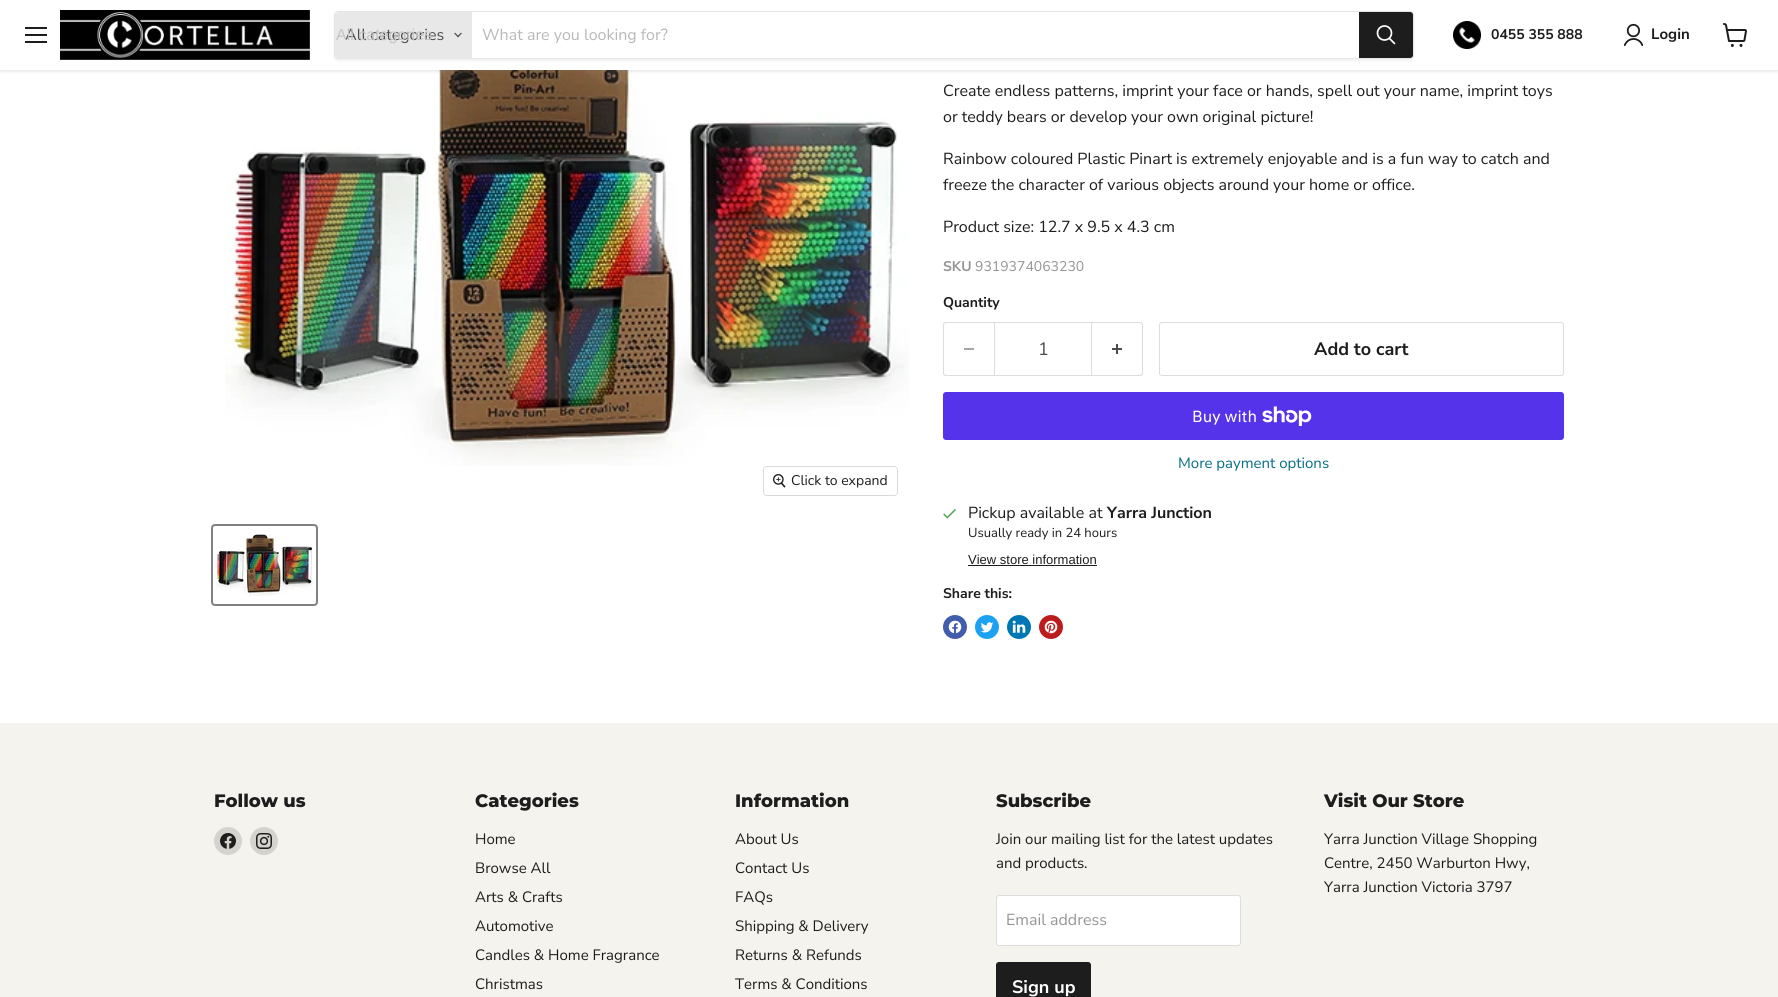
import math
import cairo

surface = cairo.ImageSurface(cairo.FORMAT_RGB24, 1778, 997)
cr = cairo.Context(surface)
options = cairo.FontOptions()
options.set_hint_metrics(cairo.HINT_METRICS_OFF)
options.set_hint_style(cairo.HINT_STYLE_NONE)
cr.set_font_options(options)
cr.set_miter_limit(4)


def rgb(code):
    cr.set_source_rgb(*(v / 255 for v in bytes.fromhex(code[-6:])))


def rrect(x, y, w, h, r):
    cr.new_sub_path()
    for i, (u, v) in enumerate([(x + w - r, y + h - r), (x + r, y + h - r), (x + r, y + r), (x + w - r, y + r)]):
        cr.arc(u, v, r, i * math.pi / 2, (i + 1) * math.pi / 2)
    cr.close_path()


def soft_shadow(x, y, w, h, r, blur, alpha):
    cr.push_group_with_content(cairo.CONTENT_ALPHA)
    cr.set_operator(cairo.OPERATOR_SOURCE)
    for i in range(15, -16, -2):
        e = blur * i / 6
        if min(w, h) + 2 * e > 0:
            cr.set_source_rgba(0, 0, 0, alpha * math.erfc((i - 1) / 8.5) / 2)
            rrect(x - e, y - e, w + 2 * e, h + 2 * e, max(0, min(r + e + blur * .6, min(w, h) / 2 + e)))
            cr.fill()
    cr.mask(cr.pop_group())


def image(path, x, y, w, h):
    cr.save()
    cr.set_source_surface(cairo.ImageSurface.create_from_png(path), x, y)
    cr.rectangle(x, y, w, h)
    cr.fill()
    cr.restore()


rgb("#ffffff")
cr.paint()
image("img/6.png", 225, 70, 684, 396)
rgb("#808080")
soft_shadow(0, 1, 1778, 70, 0, 2, 0.25)
for x, y, w, h, color in [
    (0, 0, 1778, 70, "#ffffff"),
    (25, 27, 22, 2, "#1d1d1d"),
    (25, 34, 22, 2, "#1d1d1d"),
    (25, 41, 22, 2, "#1d1d1d"),
]:
    rgb(color)
    cr.rectangle(x, y, w, h)
    cr.fill()
image("img/1.png", 60, 10, 250, 50)
cr.save()
cr.set_fill_rule(cairo.FILL_RULE_EVEN_ODD)
cr.new_path()
cr.move_to(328, 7)
cr.line_to(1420, 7)
cr.line_to(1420, 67)
cr.line_to(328, 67)
cr.close_path()
cr.move_to(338, 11)
cr.line_to(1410, 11)
cr.curve_to(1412, 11, 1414, 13, 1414, 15)
cr.line_to(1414, 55)
cr.curve_to(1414, 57, 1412, 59, 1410, 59)
cr.line_to(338, 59)
cr.curve_to(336, 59, 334, 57, 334, 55)
cr.line_to(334, 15)
cr.curve_to(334, 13, 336, 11, 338, 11)
cr.close_path()
cr.clip()
rgb("#808080")
soft_shadow(334, 13, 1080, 48, 4, 1.5, 0.11)
cr.restore()
rrect(334.5, 11.5, 1079, 47, 3.5)
cr.set_source_rgba(0.502, 0.502, 0.502, 0.2)
cr.set_line_width(1)
cr.stroke()
rgb("#e8e8e8")
cr.new_path()
cr.move_to(338, 12)
cr.line_to(472, 12)
cr.line_to(472, 58)
cr.line_to(338, 58)
cr.curve_to(336.5, 58, 335, 56.5, 335, 55)
cr.line_to(335, 15)
cr.curve_to(335, 13.5, 336.5, 12, 338, 12)
cr.close_path()
cr.fill()
image("img/2.png", 454, 32, 8, 6)
rgb("#1d1d1d")
cr.new_path()
cr.move_to(1359.5, 12.5)
cr.line_to(1410, 12.5)
cr.curve_to(1411.5, 12.5, 1412.5, 13.5, 1412.5, 15)
cr.line_to(1412.5, 55)
cr.curve_to(1412.5, 56.5, 1411.5, 57.5, 1410, 57.5)
cr.line_to(1359.5, 57.5)
cr.close_path()
cr.fill_preserve()
cr.stroke()
cr.new_path()
cr.move_to(1394.5, 43.5)
cr.line_to(1389.5, 38.5)
rgb("#ffffff")
cr.set_line_width(1.7)
cr.set_line_cap(cairo.LINE_CAP_ROUND)
cr.stroke()
cr.arc(1384.5, 33, 7, 0, 2 * math.pi)
cr.set_line_cap(cairo.LINE_CAP_BUTT)
cr.stroke()
image("img/3.png", 1453, 21, 28, 28)
image("img/4.png", 1623, 23, 20, 24)
image("img/5.png", 1723, 23, 24, 24)
rrect(763.5, 466.5, 134, 29, 3.5)
rgb("#d9d9d9")
cr.set_line_width(1)
cr.stroke()
cr.set_source_rgba(1, 1, 1, 0.9)
rrect(764, 467, 133, 28, 3)
cr.fill()
image("img/7.png", 773, 474, 13, 14)
rrect(212, 525, 105, 80, 3)
rgb("#818181")
cr.set_line_width(2)
cr.stroke()
image("img/8.png", 214, 534, 100, 62)
rgb("#dddddd")
cr.set_fill_rule(cairo.FILL_RULE_EVEN_ODD)
cr.new_path()
cr.move_to(946, 322)
cr.line_to(994, 322)
cr.line_to(994, 376)
cr.line_to(946, 376)
cr.curve_to(944, 376, 943, 375, 943, 373)
cr.line_to(943, 325)
cr.curve_to(943, 323, 944, 322, 946, 322)
cr.close_path()
cr.move_to(946, 323)
cr.line_to(994, 323)
cr.line_to(994, 375)
cr.line_to(946, 375)
cr.curve_to(945, 375, 944, 374, 944, 373)
cr.line_to(944, 325)
cr.curve_to(944, 324, 945, 323, 946, 323)
cr.close_path()
cr.fill()
rgb("#a6a6a6")
cr.rectangle(964, 348, 10, 2)
cr.fill()
cr.rectangle(994.5, 322.5, 97, 53)
rgb("#dddddd")
cr.set_line_width(1)
cr.stroke()
cr.new_path()
cr.move_to(1092, 322)
cr.line_to(1140, 322)
cr.curve_to(1142, 322, 1143, 323, 1143, 325)
cr.line_to(1143, 373)
cr.curve_to(1143, 375, 1142, 376, 1140, 376)
cr.line_to(1092, 376)
cr.close_path()
cr.move_to(1092, 323)
cr.line_to(1140, 323)
cr.curve_to(1141, 323, 1142, 324, 1142, 325)
cr.line_to(1142, 373)
cr.curve_to(1142, 374, 1141, 375, 1140, 375)
cr.line_to(1092, 375)
cr.close_path()
cr.fill()
image("img/9.png", 1112, 344, 10, 10)
rrect(1159.5, 322.5, 404, 53, 2.5)
cr.stroke()
rgb("#5433eb")
rrect(943, 392, 621, 48, 3)
cr.fill()
image("img/10.png", 1262, 406, 50, 20)
image("img/11.png", 943, 509, 13, 10)
rgb("#1d1d1d")
cr.rectangle(968, 565, 129, 1)
cr.fill()
rgb("#425dab")
cr.arc(955, 627, 12, 0, 2 * math.pi)
cr.fill()
image("img/12.png", 948, 620, 14, 14)
rgb("#1da1f2")
cr.arc(987, 627, 12, 0, 2 * math.pi)
cr.fill()
image("img/13.png", 981, 622, 13, 11)
rgb("#0077b5")
cr.arc(1019, 627, 12, 0, 2 * math.pi)
cr.fill()
image("img/14.png", 1012, 620, 14, 13)
rgb("#bd1c1c")
cr.arc(1051, 627, 12, 0, 2 * math.pi)
cr.fill()
image("img/15.png", 1044, 620, 14, 14)
rgb("#f5f3ed")
cr.rectangle(0, 723, 1778, 274)
cr.fill()
rgb("#d5d3ce")
cr.arc(228, 841, 14, 0, 2 * math.pi)
cr.fill()
image("img/16.png", 220, 833, 16, 16)
cr.arc(264, 841, 14, 0, 2 * math.pi)
cr.fill()
image("img/17.png", 256, 833, 16, 16)
rgb("#ffffff")
rrect(996.5, 895.5, 244, 50, 2.5)
cr.fill_preserve()
rgb("#dddddd")
cr.stroke()
rgb("#1d1d1d")
rrect(996.5, 962.5, 94, 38, 2.5)
cr.fill_preserve()
cr.stroke()
cr.select_font_face("Nunito Sans")
cr.set_font_size(16)
rgb("#4d4d4d")
cr.move_to(345, 40)
cr.show_text("All categories")
cr.select_font_face("Liberation Sans")
rgb("#c4c4c4")
cr.move_to(336, 40)
cr.show_text("All categories")
cr.select_font_face("Nunito Sans")
rgb("#b8b8b8")
cr.move_to(482, 40)
cr.show_text("What are you looking for?")
cr.select_font_face("Nunito Sans", cairo.FONT_SLANT_NORMAL, cairo.FONT_WEIGHT_BOLD)
cr.set_font_size(14)
rgb("#1d1d1d")
cr.move_to(1491, 39)
cr.show_text("0455 355 888")
cr.set_font_size(15)
cr.move_to(1651, 39)
cr.show_text("Login")
cr.select_font_face("Nunito Sans")
cr.set_font_size(14)
cr.move_to(791, 485)
cr.show_text("Click to expand")
cr.set_font_size(16)
for x, y, s in [
    (943, 96, "Create endless patterns, imprint your face or hands, spell out your name, imprint toys"),
    (943, 122, "or teddy bears or develop your own original picture!"),
    (943, 164, "Rainbow coloured Plastic Pinart is extremely enjoyable and is a fun way to catch and"),
    (943, 190, "freeze the character of various objects around your home or office."),
    (943, 232, "Product size: 12.7 x 9.5 x 4.3 cm"),
]:
    cr.move_to(x, y)
    cr.show_text(s)
cr.select_font_face("Nunito Sans", cairo.FONT_SLANT_NORMAL, cairo.FONT_WEIGHT_BOLD)
cr.set_font_size(14)
rgb("#949494")
cr.move_to(943, 271)
cr.show_text("SKU")
cr.select_font_face("Nunito Sans")
cr.move_to(975, 271)
cr.show_text("9319374063230")
cr.select_font_face("Nunito Sans", cairo.FONT_SLANT_NORMAL, cairo.FONT_WEIGHT_BOLD)
rgb("#1d1d1d")
cr.move_to(943, 307)
cr.show_text("Quantity")
cr.select_font_face("Nunito Sans")
cr.set_font_size(18)
rgb("#4d4d4d")
cr.move_to(1038, 355)
cr.show_text("1")
cr.select_font_face("Nunito Sans", cairo.FONT_SLANT_NORMAL, cairo.FONT_WEIGHT_BOLD)
rgb("#1d1d1d")
cr.move_to(1314, 355)
cr.show_text("Add to cart")
cr.select_font_face("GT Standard")
cr.set_font_size(16)
rgb("#ffffff")
cr.move_to(1192, 422)
cr.show_text("Buy with")
cr.select_font_face("Nunito Sans")
cr.set_font_size(15)
rgb("#046e82")
cr.move_to(1178, 468)
cr.show_text("More payment options")
cr.set_font_size(16)
rgb("#1d1d1d")
cr.move_to(968, 518)
cr.show_text("Pickup available at")
cr.select_font_face("Nunito Sans", cairo.FONT_SLANT_NORMAL, cairo.FONT_WEIGHT_BOLD)
cr.move_to(1107, 518)
cr.show_text("Yarra Junction")
cr.select_font_face("Nunito Sans")
cr.set_font_size(13)
cr.move_to(968, 537)
cr.show_text("Usually ready in 24 hours")
cr.select_font_face("Liberation Sans")
cr.move_to(968, 564)
cr.show_text("View store information")
cr.select_font_face("Nunito Sans", cairo.FONT_SLANT_NORMAL, cairo.FONT_WEIGHT_BOLD)
cr.set_font_size(14)
cr.move_to(943, 598)
cr.show_text("Share this:")
cr.select_font_face("Montserrat ExtraBold")
cr.set_font_size(18)
cr.move_to(214, 807)
cr.show_text("Follow us")
cr.move_to(475, 807)
cr.show_text("Categories")
cr.select_font_face("Nunito Sans")
cr.set_font_size(15)
for x, y, s in [
    (475, 844, "Home"),
    (475, 873, "Browse All"),
    (475, 902, "Arts & Crafts"),
    (475, 931, "Automotive"),
    (475, 960, "Candles & Home Fragrance"),
    (475, 989, "Christmas"),
]:
    cr.move_to(x, y)
    cr.show_text(s)
cr.select_font_face("Montserrat ExtraBold")
cr.set_font_size(18)
cr.move_to(735, 807)
cr.show_text("Information")
cr.select_font_face("Nunito Sans")
cr.set_font_size(15)
for x, y, s in [
    (735, 844, "About Us"),
    (735, 873, "Contact Us"),
    (735, 902, "FAQs"),
    (735, 931, "Shipping & Delivery"),
    (735, 960, "Returns & Refunds"),
    (735, 989, "Terms & Conditions"),
]:
    cr.move_to(x, y)
    cr.show_text(s)
cr.select_font_face("Montserrat ExtraBold")
cr.set_font_size(18)
cr.move_to(996, 807)
cr.show_text("Subscribe")
cr.select_font_face("Nunito Sans")
cr.set_font_size(15)
cr.move_to(996, 844)
cr.show_text("Join our mailing list for the latest updates")
cr.move_to(996, 868)
cr.show_text("and products.")
cr.set_font_size(16)
rgb("#949494")
cr.move_to(1006, 925)
cr.show_text("Email address")
cr.select_font_face("Nunito Sans", cairo.FONT_SLANT_NORMAL, cairo.FONT_WEIGHT_BOLD)
cr.set_font_size(18)
rgb("#ffffff")
cr.move_to(1012, 993)
cr.show_text("Sign up")
cr.select_font_face("Montserrat ExtraBold")
rgb("#1d1d1d")
cr.move_to(1324, 807)
cr.show_text("Visit Our Store")
cr.select_font_face("Nunito Sans")
cr.set_font_size(15)
for x, y, s in [
    (1324, 844, "Yarra Junction Village Shopping"),
    (1324, 868, "Centre, 2450 Warburton Hwy,"),
    (1324, 892, "Yarra Junction Victoria 3797"),
]:
    cr.move_to(x, y)
    cr.show_text(s)
surface.write_to_png("page.png")
